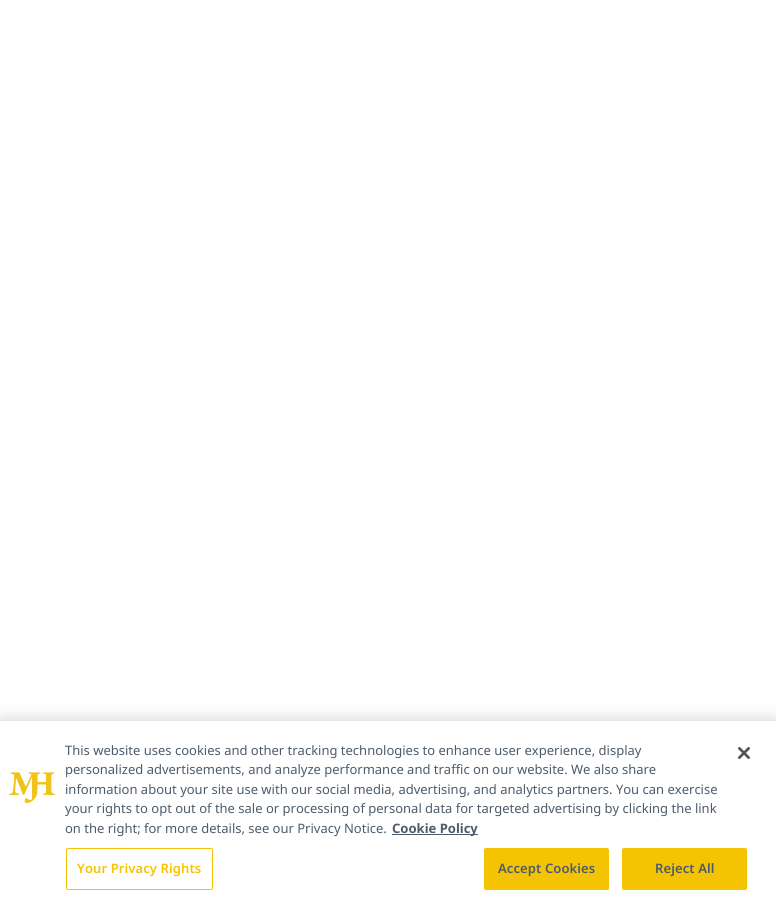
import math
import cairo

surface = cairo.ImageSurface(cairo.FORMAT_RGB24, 776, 911)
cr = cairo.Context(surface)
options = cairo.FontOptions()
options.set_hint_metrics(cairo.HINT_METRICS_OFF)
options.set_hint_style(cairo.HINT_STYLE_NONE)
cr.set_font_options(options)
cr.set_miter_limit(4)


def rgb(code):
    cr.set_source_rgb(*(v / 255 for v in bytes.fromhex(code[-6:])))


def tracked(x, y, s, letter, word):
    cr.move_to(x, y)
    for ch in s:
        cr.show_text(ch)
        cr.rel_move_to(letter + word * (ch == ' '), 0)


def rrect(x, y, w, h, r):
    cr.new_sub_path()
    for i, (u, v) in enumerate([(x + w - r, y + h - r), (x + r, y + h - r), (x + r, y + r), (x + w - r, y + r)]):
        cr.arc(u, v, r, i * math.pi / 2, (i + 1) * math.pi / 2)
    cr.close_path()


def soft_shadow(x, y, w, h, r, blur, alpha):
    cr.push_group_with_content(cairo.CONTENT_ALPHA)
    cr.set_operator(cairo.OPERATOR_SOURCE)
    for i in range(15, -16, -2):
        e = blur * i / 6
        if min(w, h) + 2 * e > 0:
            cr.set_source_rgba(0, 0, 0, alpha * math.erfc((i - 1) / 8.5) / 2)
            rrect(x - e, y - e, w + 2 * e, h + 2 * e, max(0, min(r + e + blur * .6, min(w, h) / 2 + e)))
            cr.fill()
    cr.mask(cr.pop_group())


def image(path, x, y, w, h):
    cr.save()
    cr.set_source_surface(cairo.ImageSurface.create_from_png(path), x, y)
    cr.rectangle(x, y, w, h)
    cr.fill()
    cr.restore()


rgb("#ffffff")
cr.paint()
rgb("#000000")
soft_shadow(0, 721, 776, 190, 0, 9, 0.2)
rgb("#ffffff")
cr.rectangle(0, 721, 776, 190)
cr.fill()
image("img/1.png", 9, 772, 46, 31)
rgb("#4c5c6b")
cr.rectangle(392, 834, 86, 1)
cr.fill()
rrect(66.5, 848.5, 146, 41, 1.5)
rgb("#f4c404")
cr.set_line_width(1)
cr.stroke()
rrect(484.5, 848.5, 124, 41, 1.5)
cr.fill_preserve()
cr.stroke()
rrect(622.5, 848.5, 124, 41, 1.5)
cr.fill_preserve()
cr.stroke()
image("img/2.png", 738, 747, 12, 12)
cr.select_font_face("Noto Sans")
cr.set_font_size(13)
rgb("#4c5c6b")
for x, y, s in [
    (65, 755, "This website uses cookies and other tracking technologies to enhance user experience, display"),
    (65, 774, "personalized advertisements, and analyze performance and traffic on our website. We also share"),
    (65, 794, "information about your site use with our social media, advertising, and analytics partners. You can exercise"),
    (65, 813, "your rights to opt out of the sale or processing of personal data for targeted advertising by clicking the link"),
    (65, 833, "on the right; for more details, see our Privacy Notice."),
]:
    cr.move_to(x, y)
    cr.show_text(s)
cr.select_font_face("Noto Sans", cairo.FONT_SLANT_NORMAL, cairo.FONT_WEIGHT_BOLD)
cr.move_to(392, 833)
cr.show_text("Cookie Policy")
cr.select_font_face("Noto Sans SemiBold")
rgb("#f4c404")
tracked(77, 873, "Your Privacy Rights", 0.1, 0)
rgb("#4c5c6b")
tracked(498, 873, "Accept Cookies", 0.1, 0)
tracked(655, 873, "Reject All", 0.1, 0)
surface.write_to_png("page.png")
